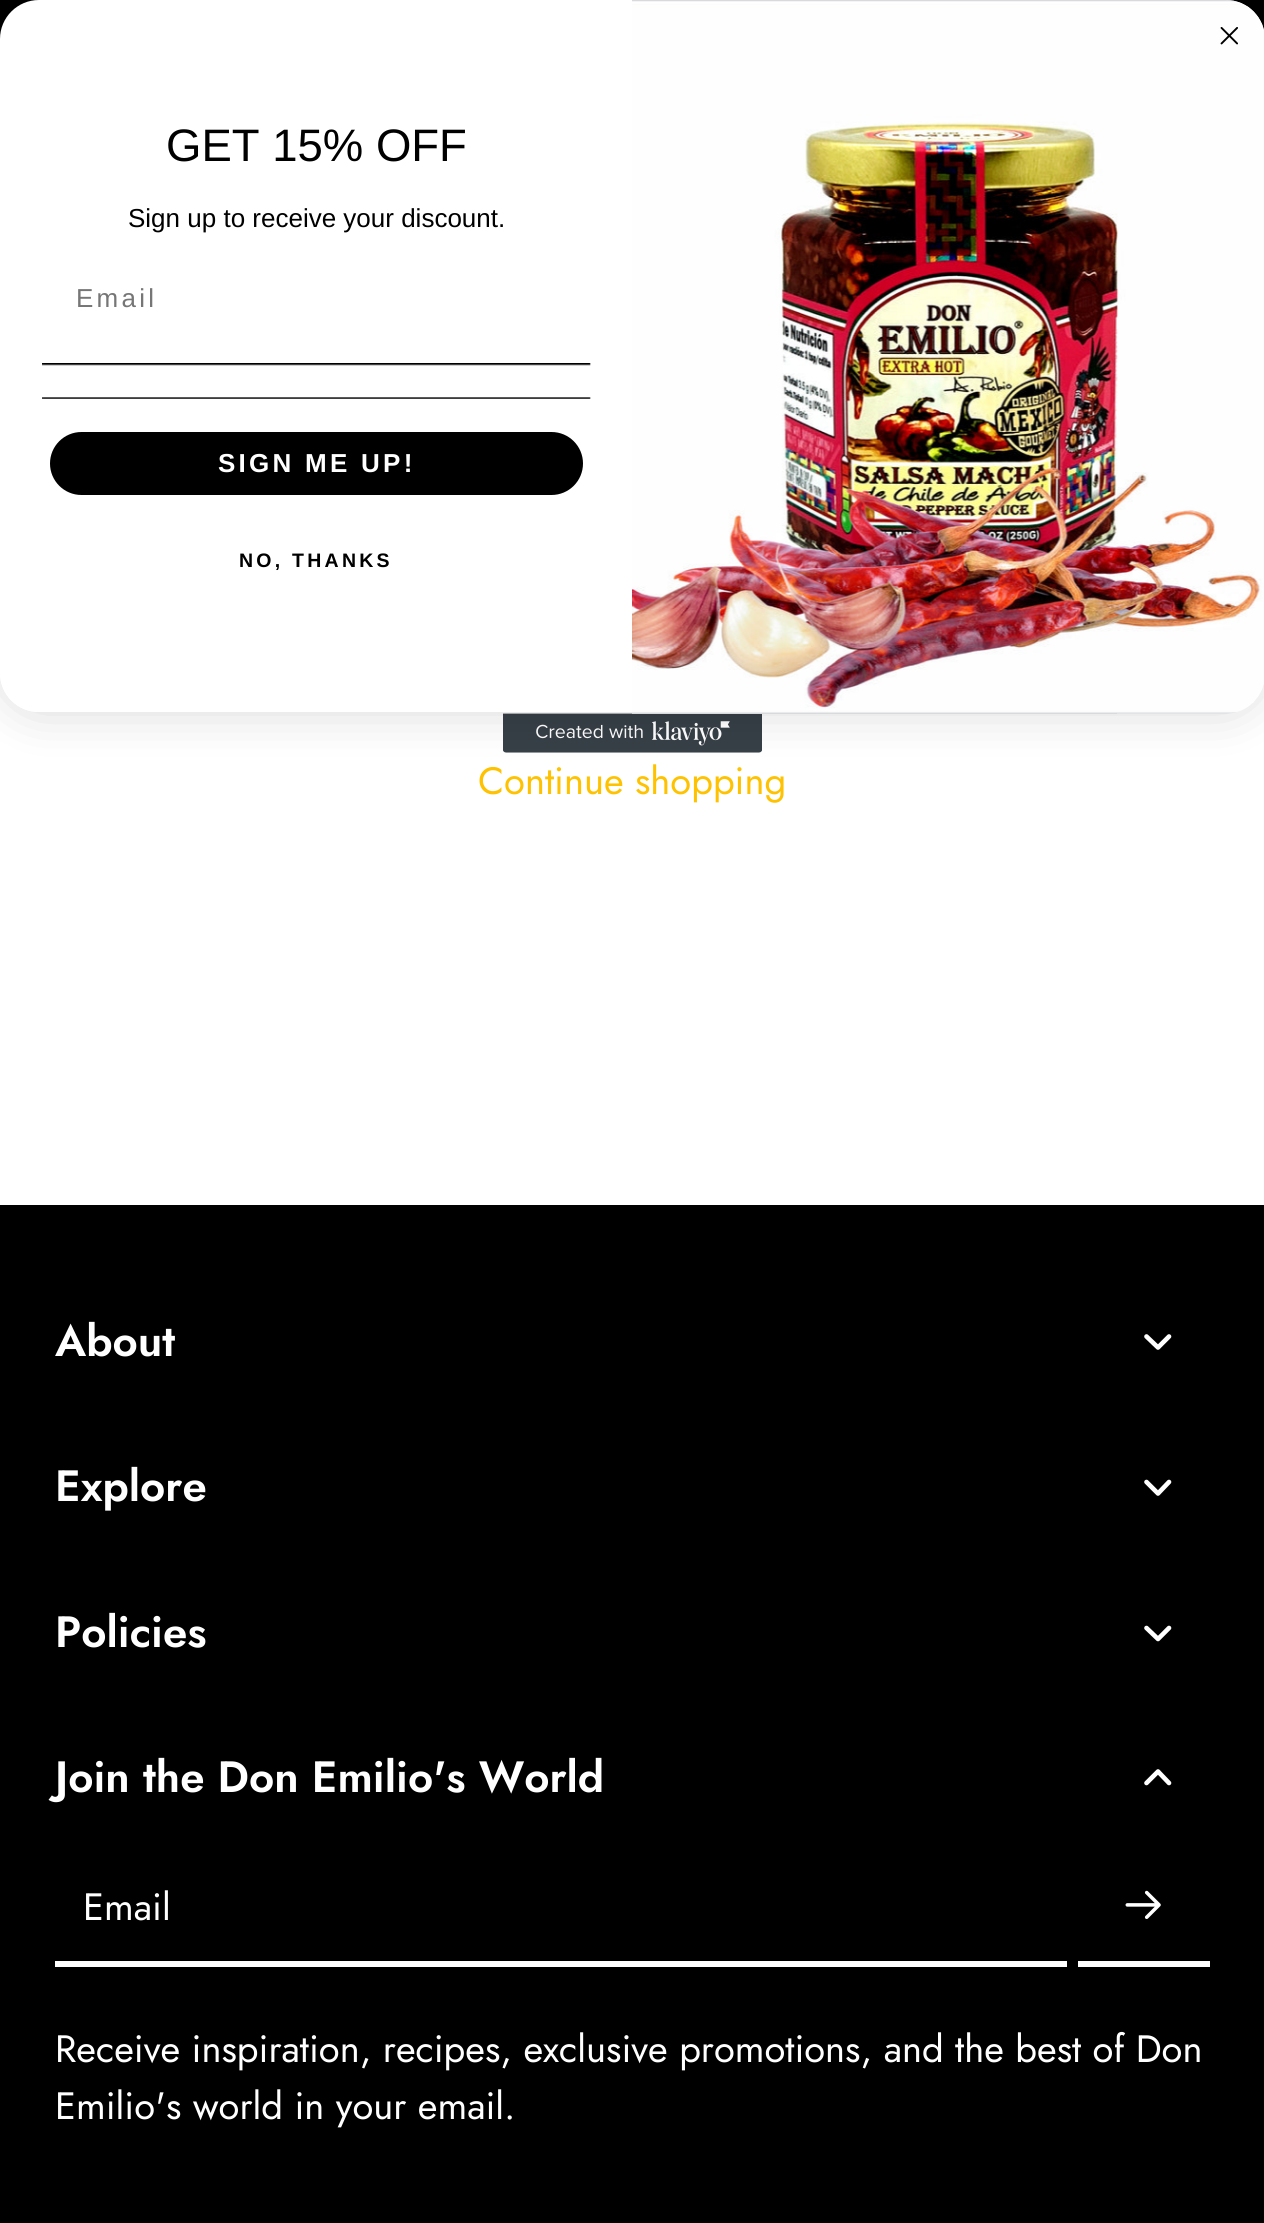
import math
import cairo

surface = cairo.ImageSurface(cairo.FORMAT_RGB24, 1264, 2223)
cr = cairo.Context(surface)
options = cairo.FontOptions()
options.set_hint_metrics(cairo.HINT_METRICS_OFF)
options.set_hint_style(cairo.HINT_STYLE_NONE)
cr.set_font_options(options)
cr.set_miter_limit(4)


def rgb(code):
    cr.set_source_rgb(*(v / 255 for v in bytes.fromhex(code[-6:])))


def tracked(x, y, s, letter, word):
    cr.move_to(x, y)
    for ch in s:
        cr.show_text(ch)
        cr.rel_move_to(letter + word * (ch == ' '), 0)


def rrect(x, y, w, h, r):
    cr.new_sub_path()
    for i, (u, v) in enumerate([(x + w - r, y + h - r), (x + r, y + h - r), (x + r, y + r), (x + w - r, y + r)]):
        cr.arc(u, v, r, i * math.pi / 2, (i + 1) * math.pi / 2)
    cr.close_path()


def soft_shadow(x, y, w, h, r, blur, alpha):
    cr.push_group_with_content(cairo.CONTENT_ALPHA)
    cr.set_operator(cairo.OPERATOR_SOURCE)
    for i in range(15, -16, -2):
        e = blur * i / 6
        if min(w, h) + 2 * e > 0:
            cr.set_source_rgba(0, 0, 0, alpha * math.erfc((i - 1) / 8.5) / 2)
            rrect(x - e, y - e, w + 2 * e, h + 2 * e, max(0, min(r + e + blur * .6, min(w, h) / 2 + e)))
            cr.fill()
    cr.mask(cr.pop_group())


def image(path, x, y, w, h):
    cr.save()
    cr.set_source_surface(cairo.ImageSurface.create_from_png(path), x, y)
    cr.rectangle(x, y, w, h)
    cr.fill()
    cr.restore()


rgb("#ffffff")
cr.paint()
image("img/5.png", 503, 713, 259, 40)
rgb("#000000")
cr.rectangle(0, 0, 1264, 39)
cr.fill()
cr.save()
cr.set_fill_rule(cairo.FILL_RULE_EVEN_ODD)
cr.new_path()
cr.move_to(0, 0)
cr.line_to(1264, 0)
cr.line_to(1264, 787)
cr.line_to(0, 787)
cr.close_path()
cr.move_to(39, 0)
cr.line_to(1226, 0)
cr.curve_to(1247.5, 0, 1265, 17.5, 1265, 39)
cr.line_to(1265, 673)
cr.curve_to(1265, 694.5, 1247.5, 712, 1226, 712)
cr.line_to(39, 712)
cr.curve_to(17.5, 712, 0, 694.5, 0, 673)
cr.line_to(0, 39)
cr.curve_to(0, 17.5, 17.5, 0, 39, 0)
cr.close_path()
cr.clip()
rgb("#000000")
soft_shadow(0, 0, 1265, 712, 39, 24.5, 0.15)
cr.restore()
rgb("#ffffff")
rrect(0, 0, 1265, 712, 39)
cr.fill()
image("img/4.png", 632, 0, 632, 714)
image("img/1.png", 1220, 27, 18, 18)
image("img/2.png", 42, 363, 549, 3)
image("img/3.png", 42, 397, 549, 2)
rgb("#000000")
rrect(50, 432, 533, 63, 31.5)
cr.fill()
cr.rectangle(0, 1205, 1264, 1018)
cr.fill()
cr.new_path()
cr.move_to(1146.5, 1336.5)
cr.line_to(1158, 1347.5)
cr.line_to(1169, 1336.5)
rgb("#ffffff")
cr.set_line_width(4.6)
cr.set_line_cap(cairo.LINE_CAP_ROUND)
cr.set_line_join(cairo.LINE_JOIN_ROUND)
cr.stroke()
cr.new_path()
cr.move_to(1146.5, 1482)
cr.line_to(1158, 1493.5)
cr.line_to(1169, 1482)
cr.stroke()
cr.new_path()
cr.move_to(1146.5, 1628)
cr.line_to(1158, 1639)
cr.line_to(1169, 1628)
cr.stroke()
cr.new_path()
cr.move_to(1169, 1783)
cr.line_to(1158, 1771.5)
cr.line_to(1146.5, 1783)
cr.stroke()
cr.rectangle(55, 1961, 1012, 6)
cr.fill()
cr.rectangle(1078, 1961, 132, 6)
cr.fill()
image("img/6.png", 1125, 1890, 36, 29)
cr.select_font_face("Liberation Sans")
cr.set_font_size(45.5)
rgb("#000000")
cr.move_to(166, 161)
cr.show_text("GET 15% OFF")
cr.set_font_size(26)
cr.move_to(128, 227)
cr.show_text("Sign up to receive your discount.")
rgb("#767676")
tracked(76, 307, "Email", 3.25, 0)
cr.select_font_face("Liberation Sans", cairo.FONT_SLANT_NORMAL, cairo.FONT_WEIGHT_BOLD)
rgb("#ffffff")
tracked(218, 472, "SIGN ME UP!", 3.25, 0)
cr.set_font_size(19.5)
rgb("#000000")
tracked(239, 567, "NO, THANKS", 3.25, 0)
cr.select_font_face("Jost")
cr.set_font_size(38.1)
rgb("#ffc200")
cr.move_to(478, 794)
cr.show_text("Continue shopping")
cr.select_font_face("Jost SemiBold")
cr.set_font_size(43.8)
rgb("#ffffff")
for x, y, s in [
    (55, 1356, "About"),
    (55, 1501, "Explore"),
    (55, 1647, "Policies"),
    (55, 1792, "Join the Don Emilio's World"),
]:
    cr.move_to(x, y)
    cr.show_text(s)
cr.select_font_face("Jost")
cr.set_font_size(38.1)
for x, y, s in [
    (83, 1920, "Email"),
    (55, 2062, "Receive inspiration, recipes, exclusive promotions, and the best of Don"),
    (55, 2119, "Emilio's world in your email."),
]:
    cr.move_to(x, y)
    cr.show_text(s)
surface.write_to_png("page.png")
